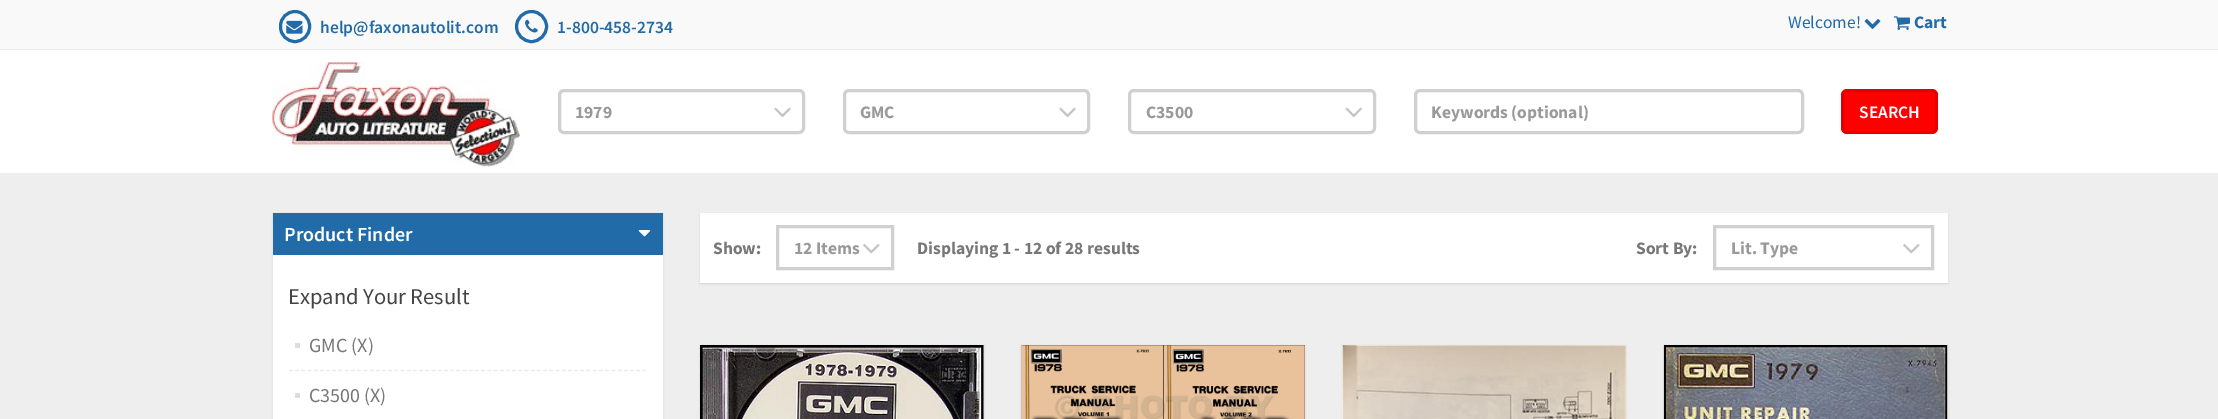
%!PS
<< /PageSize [2218 419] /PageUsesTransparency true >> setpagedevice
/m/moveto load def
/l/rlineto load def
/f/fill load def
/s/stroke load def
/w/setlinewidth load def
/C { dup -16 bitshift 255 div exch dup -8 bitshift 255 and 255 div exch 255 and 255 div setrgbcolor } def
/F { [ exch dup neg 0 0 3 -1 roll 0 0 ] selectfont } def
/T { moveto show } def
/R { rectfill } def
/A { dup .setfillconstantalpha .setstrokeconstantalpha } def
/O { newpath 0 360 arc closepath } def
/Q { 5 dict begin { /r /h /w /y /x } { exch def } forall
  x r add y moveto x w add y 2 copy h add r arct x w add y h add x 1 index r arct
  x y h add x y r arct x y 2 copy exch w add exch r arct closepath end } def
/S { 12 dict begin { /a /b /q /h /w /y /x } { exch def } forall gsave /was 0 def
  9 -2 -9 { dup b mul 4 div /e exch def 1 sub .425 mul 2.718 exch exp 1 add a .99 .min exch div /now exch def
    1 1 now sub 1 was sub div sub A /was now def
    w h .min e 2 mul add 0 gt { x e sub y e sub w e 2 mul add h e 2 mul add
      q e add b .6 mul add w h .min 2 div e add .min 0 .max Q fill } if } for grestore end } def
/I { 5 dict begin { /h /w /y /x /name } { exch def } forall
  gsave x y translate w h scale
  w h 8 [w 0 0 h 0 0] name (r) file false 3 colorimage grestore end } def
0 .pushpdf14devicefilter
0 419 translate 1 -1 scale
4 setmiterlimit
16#EEEEEE C
0 0 2218 419 R
16#F9F9F9 C
0 0 2218 49 R
16#EBEBEB C
0 49 2218 1 R
16#206BA8 C
3 w
280.5 11.5 29 30 14.5 Q s
(1.rgb) 286 20 17 14 I
/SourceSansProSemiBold-SemiBold 17.5 F
(help@faxonautolit.com) 320 33 T
531.5 26.5 15 O s
(2.rgb) 525 19 13 14 I
(1-800-458-2734) 557 33 T
/SourceSansPro-Regular 17.5 F
(Welcome!) 1788 28 T
(3.rgb) 1864 19 17 10 I
(4.rgb) 1893 16 17 14 I
/SourceSansPro-Bold 17.5 F
(Cart) 1914 28 T
16#FFFFFF C
0 50 2218 123 R
(5.rgb) 272 62 248 105 I
(6.rgb) 774 107 17 11 I
16#D0D0D0 C
559.5 90.5 244 42 4.5 Q s
16#999999 C
(1979) 575 118 T
(7.rgb) 1059 107 17 11 I
16#D0D0D0 C
844.5 90.5 244 42 4.5 Q s
16#999999 C
(GMC) 860 118 T
(8.rgb) 1345 107 17 11 I
16#D0D0D0 C
1129.5 90.5 245 42 4.5 Q s
16#999999 C
(C3500) 1146 118 T
16#D0D0D0 C
1415.5 90.5 387 42 4.5 Q s
16#999999 C
(Keywords \(optional\)) 1431 118 T
16#FF0000 C
1841 89 97 45 6 Q f
0.1 A
16#000000 C
1842.5 90.5 94 42 4.5 Q s
/SourceSansProSemiBold-SemiBold 17.5 F
1 A
16#FFFFFF C
(SEARCH) 1859 118 T
16#000000 C
273 214 390 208 0 1 .1 S
16#FFFFFF C
273 255 390 164 R
16#206BA8 C
273 213 390 42 R
/SourceSansProSemiBold-SemiBold 20 F
16#FFFFFF C
(Product Finder) 284 241 T
(9.rgb) 638 230 13 7 I
/SourceSansPro-Regular 22.5 F
16#444444 C
(Expand Your Result) 288 304 T
16#EBEBEB C
1.2 w
[3.75 2.45] 0 setdash
289 370.5 m 357 0 l s
16#DDDDDD C
295 343 5 5 R
/SourceSansPro-Regular 20 F
16#777777 C
(GMC \(X\)) 309 352 T
16#DDDDDD C
295 393 5 5 R
16#777777 C
(C3500 \(X\)) 309 402 T
16#000000 C
700 214 1248 70 0 1 .1 S
16#FFFFFF C
700 213 1248 70 R
/SourceSansPro-Bold 17.5 F
16#777777 C
(Show:) 713 254 T
(10.rgb) 863 243 17 11 I
16#D0D0D0 C
3 w
[] 0 setdash
777.5 226.5 115 42 rectstroke
16#999999 C
(12 Items) 794 254 T
16#777777 C
(Displaying 1 - 12 of 28 results) 917 254 T
(Sort By:) 1636 254 T
(10.rgb) 1903 243 17 11 I
16#D0D0D0 C
1714.5 226.5 218 42 rectstroke
16#999999 C
(Lit. Type) 1731 254 T
16#000000 C
700 346 284 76 0 1 .1 S
16#FFFFFF C
983 345 1 74 R
(11.rgb) 700 345 284 74 I
16#000000 C
1021 346 284 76 0 1 .1 S
16#FFFFFF C
1021 345 1 74 R
(12.rgb) 1021 345 284 74 I
16#000000 C
1343 346 283 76 0 1 .1 S
(13.rgb) 1342 345 284 74 I
1664 346 284 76 0 1 .1 S
16#FFFFFF C
1947 345 1 74 R
(14.rgb) 1663 345 285 74 I
.poppdf14devicefilter showpage
